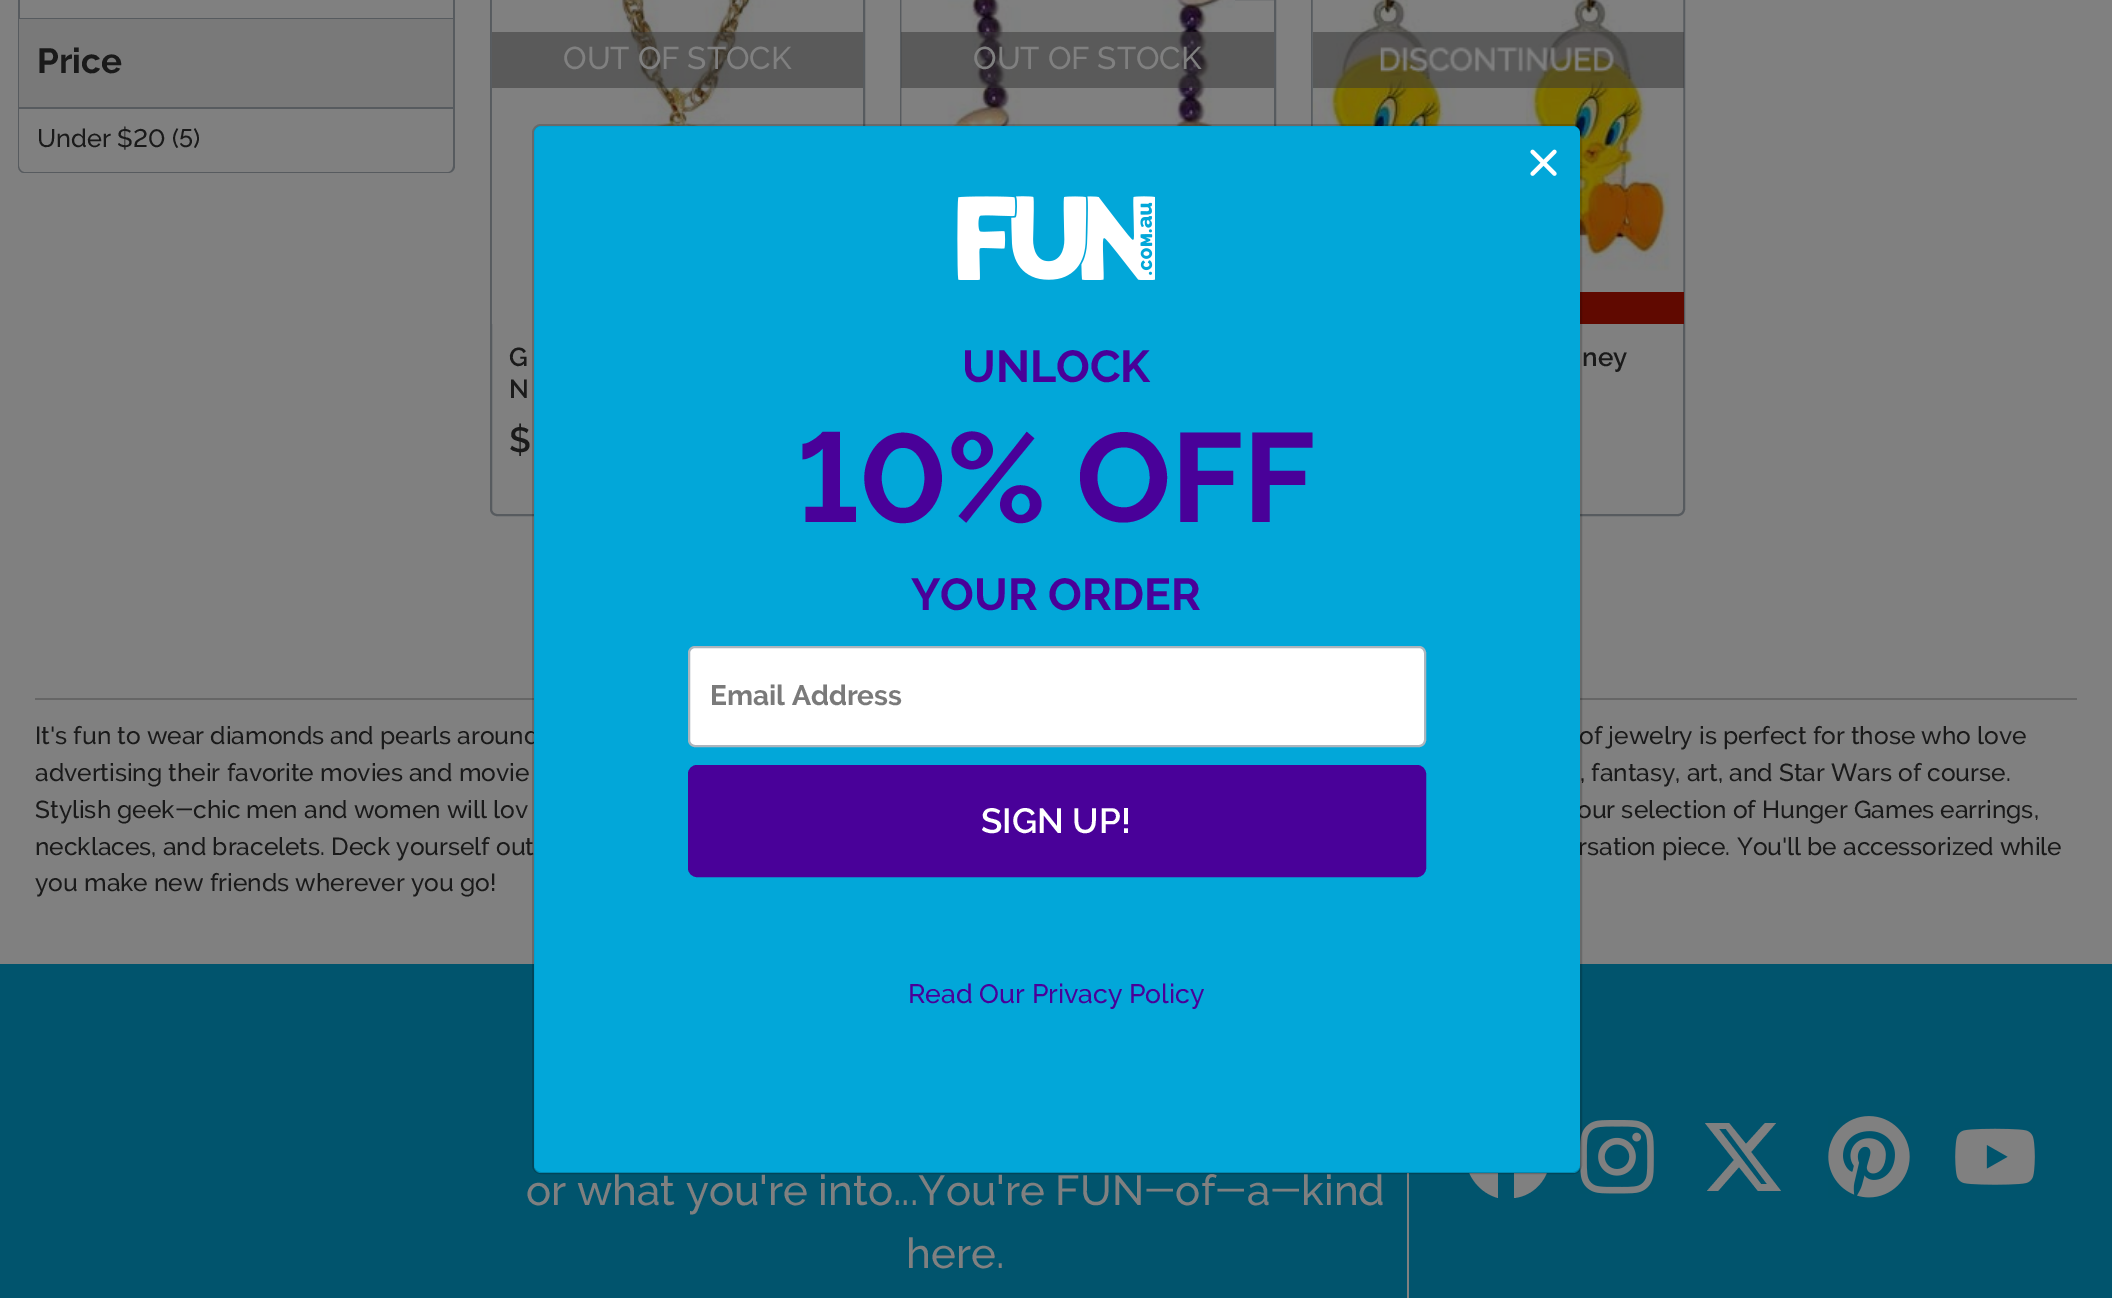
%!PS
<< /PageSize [2112 1298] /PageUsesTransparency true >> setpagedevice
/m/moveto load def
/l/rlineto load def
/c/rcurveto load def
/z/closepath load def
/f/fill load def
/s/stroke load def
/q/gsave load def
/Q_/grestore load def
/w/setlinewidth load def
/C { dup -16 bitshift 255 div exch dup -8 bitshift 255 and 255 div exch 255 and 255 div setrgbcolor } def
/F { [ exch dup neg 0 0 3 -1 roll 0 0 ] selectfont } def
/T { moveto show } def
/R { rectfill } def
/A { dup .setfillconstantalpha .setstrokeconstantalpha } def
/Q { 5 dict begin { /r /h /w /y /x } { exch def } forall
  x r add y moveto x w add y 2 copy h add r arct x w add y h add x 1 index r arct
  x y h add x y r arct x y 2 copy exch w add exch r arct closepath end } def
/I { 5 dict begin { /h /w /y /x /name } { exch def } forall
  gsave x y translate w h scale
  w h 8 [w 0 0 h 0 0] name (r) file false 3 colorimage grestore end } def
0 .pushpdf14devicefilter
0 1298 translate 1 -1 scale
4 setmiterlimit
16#808080 C
0 0 2112 1298 R
16#575B5F C
453 0 2 19 R
18 18 437 1 R
18 0 2 19 R
18 19 m 437 0 l 0 147 l 0 4 -3 7 -7 7 c -424 0 l -3 0 -6 -3 -6 -7 c z 19 19 m 434 0 l 0 147 l 0 3 -2 6 -5 6 c -424 0 l -2 0 -5 -3 -5 -6 c z eofill
16#797979 C
19 19 434 88 R
16#575B5F C
19 107 434 2 R
/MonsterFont-Bold 35 F
16#1A1A1A C
(Price) 37 73 T
/MonsterFont-Medium 25.25 F
(Under $20 \(5\)) 37 147 T
16#575B5F C
2 w
491 -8 373 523 6 Q s
(1.rgb) 491 0 285 324 I
0.5 A
16#353535 C
492 32 371 56 R
/MonsterFont-Medium 31.5 F
1 A
16#808080 C
(OUT OF STOCK) 563 69 T
/MonsterFont-SemiBold 26 F
16#1A1A1A C
(G) 509 366 T
(N) 509 398 T
/MonsterFont-SemiBold 35 F
($) 509 452 T
16#575B5F C
901 -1 374 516 rectstroke
(2.rgb) 901 0 334 126 I
0.5 A
16#353535 C
901 32 373 56 R
/MonsterFont-Medium 31.5 F
1 A
16#808080 C
(OUT OF STOCK) 973 69 T
16#575B5F C
1312 -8 372 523 6 Q s
(3.rgb) 1312 0 372 292 I
0.5 A
16#353535 C
1313 32 371 56 R
1 A
(4.rgb) 1380 47 234 25 I
16#600900 C
1580 292 104 32 R
/MonsterFont-SemiBold 26 F
16#1A1A1A C
(ney) 1582 366 T
16#666666 C
35 698 2042 2 R
/MonsterFont-Medium 24.5 F
16#1A1A1A C
(It's fun to wear diamonds and pearls around) 35 744 T
(of jewelry is perfect for those who love) 1579 744 T
(advertising their favorite movies and movie) 35 781 T
(, fantasy, art, and Star Wars of course.) 1580 781 T
(Stylish geek-chic men and women will lov) 35 818 T
(our selection of Hunger Games earrings,) 1577 818 T
(necklaces, and bracelets. Deck yourself out) 35 855 T
(rsation piece. You'll be accessorized while) 1578 855 T
(you make new friends wherever you go!) 35 891 T
16#01546D C
0 964 2112 334 R
16#808080 C
1550 1157 m 0 -23 -18 -42 -42 -42 c -23 0 -42 19 -42 42 c 0 19 14 36 32 41 c 0 -28 l -8 0 l 0 -13 l 8 0 l 0 -5 0 -10 2 -15 c 3 -12 18 -14 28 -11 c 0 12 l -13 -1 -14 1 -14 14 c 13 0 l -2 13 l -11 0 l 0 28 l 20 -2 36 -20 36 -41 c z f
16#02A7D9 C
534 126 1046 1047 7 Q f
(7.rgb) 1580 1120 74 74 I
16#808080 C
1407 1173 2 125 R
/MonsterFont-Medium 42 F
(or what you're into...You're FUN-of-a-kind) 526 1205 T
0.18 A
16#000000 C
533 125 1048 1048 8 Q s
1 A
(5.rgb) 1530 149 27 27 I
(6.rgb) 957 196 198 84 I
/MonsterFont-Bold 44.75 F
16#490199 C
(UNLOCK) 962 382 T
/MonsterFont-Bold 126 F
(10% OFF) 797 522 T
/MonsterFont-Bold 44.75 F
(YOUR ORDER) 911 610 T
16#FFFFFF C
689 647 736 99 6 Q q f Q_
16#ADB5BD C
s
/MonsterFont-Bold 28 F
16#7A7A7A C
(Email Address) 710 705 T
16#490199 C
689 766 736 110 8 Q q f Q_
s
/MonsterFont-SemiBold 35 F
16#FFFFFF C
(SIGN UP!) 981 833 T
/MonsterFont-Medium 26.6 F
16#490199 C
(Read Our Privacy Policy) 908 1003 T
16#808080 C
1765 1123 m 11 0 l -25 29 l 30 39 l -23 0 l -19 -24 l -21 24 l -11 0 l 27 -31 l -29 -37 l 24 0 l 17 21 l z 1761 1184 m 6 0 l -41 -55 l -7 0 l z f
(8.rgb) 1828 1116 82 82 I
(9.rgb) 1955 1128 80 57 I
/MonsterFont-Medium 42 F
(here.) 906 1268 T
.poppdf14devicefilter showpage
